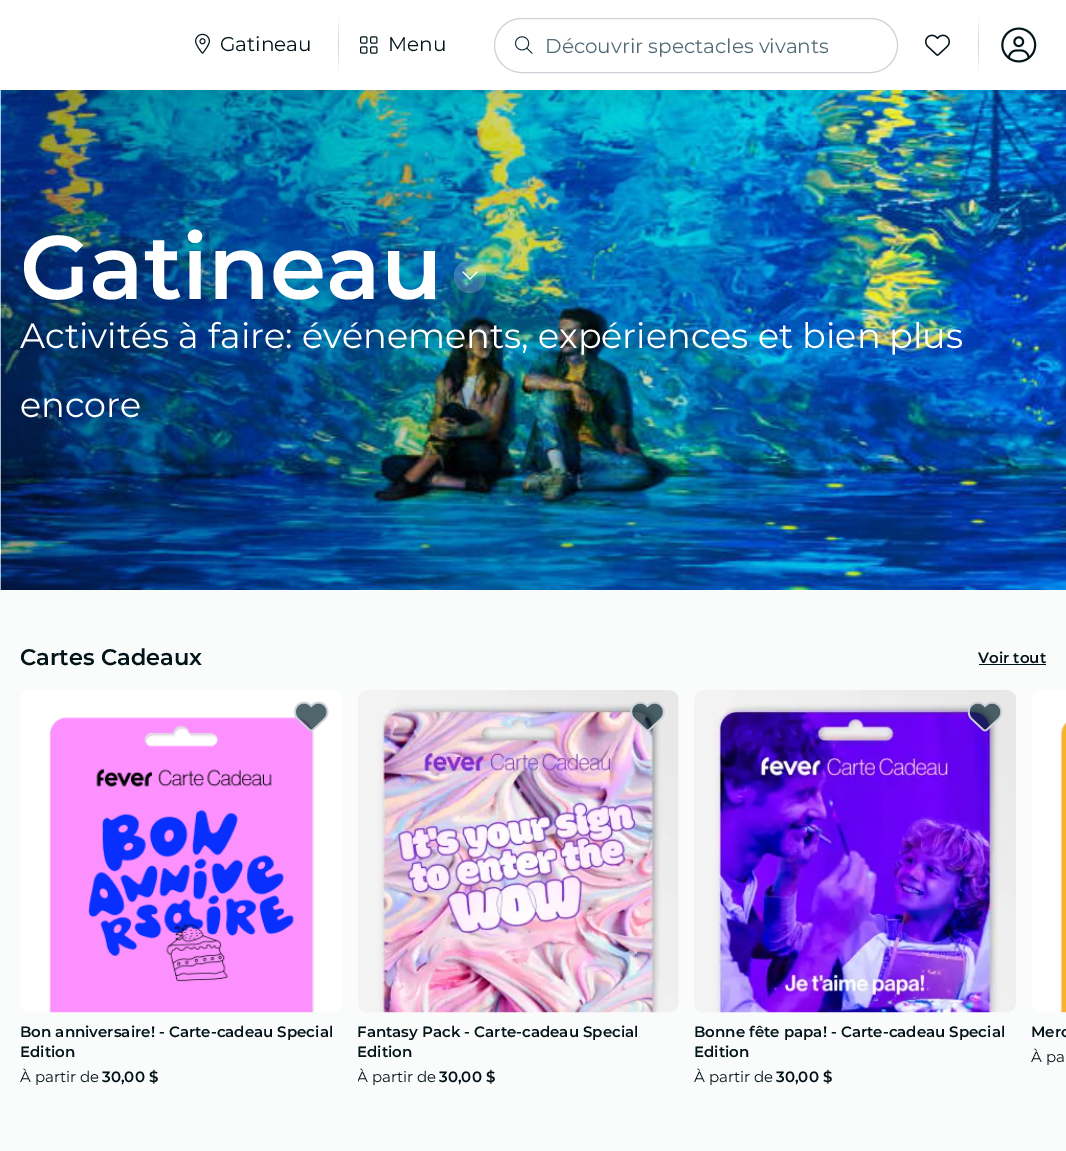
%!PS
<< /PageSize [1066 1151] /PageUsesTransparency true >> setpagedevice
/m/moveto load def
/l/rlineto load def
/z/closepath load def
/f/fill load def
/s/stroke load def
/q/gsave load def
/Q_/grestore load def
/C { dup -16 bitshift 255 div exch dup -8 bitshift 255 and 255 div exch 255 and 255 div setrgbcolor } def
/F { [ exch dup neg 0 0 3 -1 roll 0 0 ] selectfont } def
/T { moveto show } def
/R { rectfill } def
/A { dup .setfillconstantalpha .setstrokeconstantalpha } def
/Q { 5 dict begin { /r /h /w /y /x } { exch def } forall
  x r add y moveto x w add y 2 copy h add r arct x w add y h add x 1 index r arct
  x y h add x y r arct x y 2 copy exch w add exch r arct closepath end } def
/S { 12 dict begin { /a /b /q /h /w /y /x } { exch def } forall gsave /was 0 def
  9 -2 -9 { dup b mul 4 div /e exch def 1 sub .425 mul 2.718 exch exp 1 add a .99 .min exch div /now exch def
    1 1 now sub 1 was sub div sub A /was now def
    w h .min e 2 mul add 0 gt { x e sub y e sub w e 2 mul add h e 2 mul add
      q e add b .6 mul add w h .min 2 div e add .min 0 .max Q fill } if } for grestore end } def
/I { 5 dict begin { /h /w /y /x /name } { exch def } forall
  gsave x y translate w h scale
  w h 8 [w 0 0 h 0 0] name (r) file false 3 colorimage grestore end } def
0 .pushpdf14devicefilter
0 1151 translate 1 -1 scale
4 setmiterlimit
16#FFFFFF C
0 0 1066 1151 R
16#FAFBFB C
0 90 1066 1061 R
(6.rgb) 0 90 1066 500 I
q
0 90 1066 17 rectclip
16#000000 C
0 15 1066 90 0 7.5 .05 S
Q_
(1.rgb) 195 33 15 21 I
/Montserrat-Regular 20 F
16#031419 C
(Gatineau) 220 51 T
q 338 15 m 1 0 l 0 60 l -1 0 l z clip newpath
<< /ShadingType 2 /ColorSpace /DeviceRGB /Coords [338 15 338 75] /Extend [true true] /Function << /FunctionType 3 /Domain [0 1] /Functions [<< /FunctionType 2 /Domain [0 1] /C0 [1 1 1] /C1 [.8 .824 .847] /N 1 >> << /FunctionType 2 /Domain [0 1] /C0 [.8 .824 .847] /C1 [1 1 1] /N 1 >>] /Bounds [.5] /Encode [0 1 0 1] >> >> shfill Q_
(2.rgb) 360 36 18 18 I
(Menu) 388 51 T
16#CCD2D8 C
494.5 18.5 403 54 27 Q s
(3.rgb) 515 36 18 18 I
16#536B75 C
(Découvrir spectacles vivants) 545 53 T
(4.rgb) 925 34 25 22 I
q 978 15 m 1 0 l 0 60 l -1 0 l z clip newpath
<< /ShadingType 2 /ColorSpace /DeviceRGB /Coords [978 15 978 75] /Extend [true true] /Function << /FunctionType 3 /Domain [0 1] /Functions [<< /FunctionType 2 /Domain [0 1] /C0 [1 1 1] /C1 [.8 .824 .847] /N 1 >> << /FunctionType 2 /Domain [0 1] /C0 [.8 .824 .847] /C1 [1 1 1] /N 1 >>] /Bounds [.5] /Encode [0 1 0 1] >> >> shfill Q_
(5.rgb) 1001 27 36 36 I
/Montserrat-SemiBold 90 F
16#FFFFFF C
(Gatineau) 20 299 T
0.2 A
454 260 32 33 16 Q f
1 A
(7.rgb) 462 271 16 9 I
/Montserrat-Regular 35 F
(Activités à faire: événements, expériences et bien plus) 20 348 T
(encore) 20 417 T
/Montserrat-SemiBold 22.5 F
16#031419 C
(Cartes Cadeaux) 20 665 T
/Montserrat-SemiBold 15 F
(Voir tout) 978 663 T
979 664 67 1 R
(9.rgb) 20 690 322 323 I
(8.rgb) 294 701 35 31 I
(Bon anniversaire! - Carte-cadeau Special) 20 1037 T
(Edition) 20 1057 T
/Montserrat-Regular 15 F
(À partir de) 20 1082 T
/Montserrat-SemiBold 15 F
(30,00 $) 102 1082 T
(11.rgb) 358 690 321 323 I
(10.rgb) 630 701 35 31 I
(Fantasy Pack - Carte-cadeau Special) 357 1037 T
(Edition) 357 1057 T
q
358 690 321 398 8 Q clip newpath
/Montserrat-Regular 15 F
(À partir de) 357 1082 T
Q_
(30,00 $) 439 1082 T
(13.rgb) 694 690 322 323 I
(12.rgb) 967 701 36 31 I
(Bonne fête papa! - Carte-cadeau Special) 694 1037 T
(Edition) 694 1057 T
/Montserrat-Regular 15 F
(À partir de) 694 1082 T
/Montserrat-SemiBold 15 F
(30,00 $) 776 1082 T
(14.rgb) 1032 690 34 323 I
(Merc) 1031 1037 T
/Montserrat-Regular 15 F
(À pa) 1031 1062 T
.poppdf14devicefilter showpage
